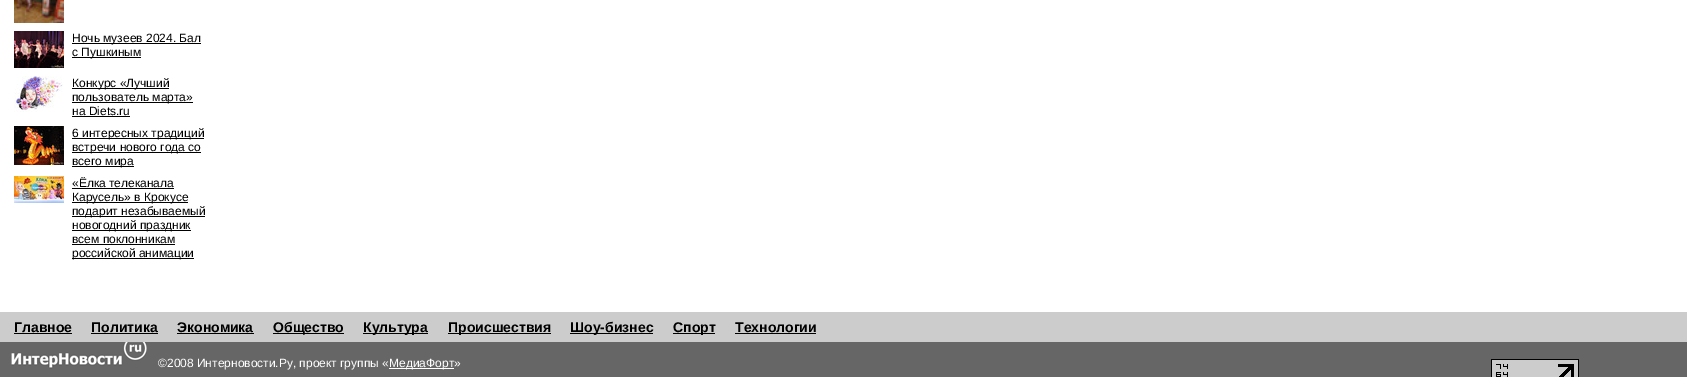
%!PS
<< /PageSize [1687 377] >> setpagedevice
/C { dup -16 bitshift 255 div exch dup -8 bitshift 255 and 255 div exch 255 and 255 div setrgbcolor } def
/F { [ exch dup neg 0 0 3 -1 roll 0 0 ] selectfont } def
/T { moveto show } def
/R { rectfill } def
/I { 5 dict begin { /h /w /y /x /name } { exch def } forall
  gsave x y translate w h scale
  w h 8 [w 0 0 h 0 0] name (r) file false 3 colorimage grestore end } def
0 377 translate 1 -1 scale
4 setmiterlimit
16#FFFFFF C
0 0 1687 377 R
(1.rgb) 14 0 50 23 I
(2.rgb) 14 31 50 37 I
16#000000 C
72 43 129 1 R
/LiberationSans-Regular 12 F
(Ночь музеев 2024. Бал) 72 42 T
72 57 69 1 R
(с Пушкиным) 72 56 T
(3.rgb) 14 76 49 36 I
72 88 97 1 R
(Конкурс «Лучший) 72 87 T
72 102 121 1 R
(пользователь марта») 72 101 T
(на Diets.ru) 72 115 T
72 116 58 1 R
(4.rgb) 14 126 50 39 I
72 138 132 1 R
(6 интересных традиций) 72 137 T
72 152 129 1 R
(встречи нового года со) 72 151 T
72 166 62 1 R
(всего мира) 72 165 T
(5.rgb) 14 176 50 27 I
(«Ёлка телеканала) 72 187 T
72 188 102 1 R
72 202 116 1 R
(Карусель» в Крокусе) 72 201 T
72 216 133 1 R
(подарит незабываемый) 72 215 T
72 230 119 1 R
(новогодний праздник) 72 229 T
(всем поклонникам) 72 243 T
72 244 103 1 R
72 258 122 1 R
(российской анимации) 72 257 T
16#CCCCCC C
0 312 1687 30 R
/LiberationSans-Bold 14 F
16#000000 C
(Главное) 14 332 T
14 333 58 1 R
(Политика) 91 332 T
91 333 67 1 R
(Экономика) 177 332 T
177 333 77 1 R
273 333 71 1 R
(Общество) 273 332 T
363 333 65 1 R
(Культура) 363 332 T
448 333 103 1 R
(Происшествия) 448 332 T
570 333 83 1 R
(Шоу-бизнес) 570 332 T
673 333 42 1 R
(Спорт) 673 332 T
(Технологии) 735 332 T
735 333 81 1 R
16#666666 C
0 342 1687 35 R
(6.rgb) 11 342 136 27 I
/LiberationSans-Regular 12 F
16#FFFFFF C
(©2008 Интерновости.Ру, проект группы «) 158 367 T
389 368 65 1 R
(МедиаФорт») 389 367 T
(7.rgb) 1491 359 88 18 I
showpage
